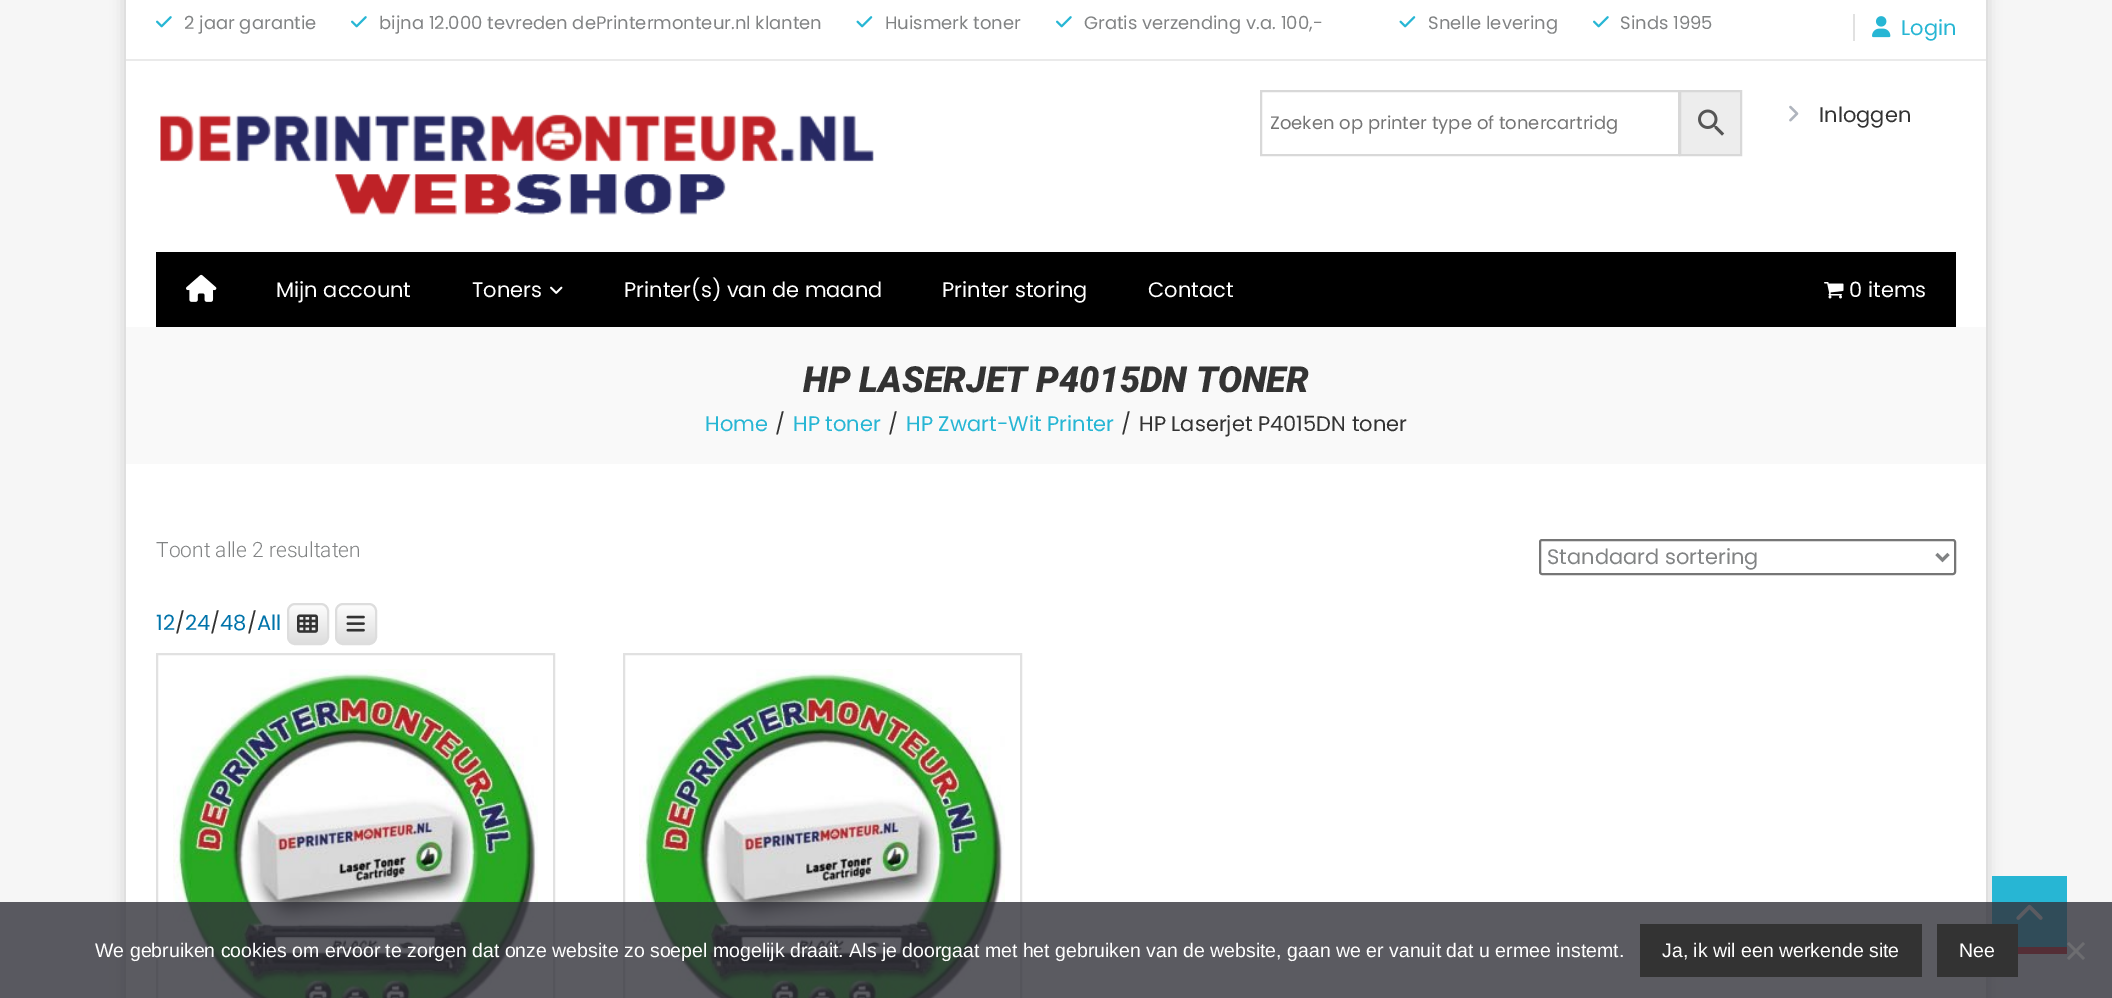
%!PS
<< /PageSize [2112 998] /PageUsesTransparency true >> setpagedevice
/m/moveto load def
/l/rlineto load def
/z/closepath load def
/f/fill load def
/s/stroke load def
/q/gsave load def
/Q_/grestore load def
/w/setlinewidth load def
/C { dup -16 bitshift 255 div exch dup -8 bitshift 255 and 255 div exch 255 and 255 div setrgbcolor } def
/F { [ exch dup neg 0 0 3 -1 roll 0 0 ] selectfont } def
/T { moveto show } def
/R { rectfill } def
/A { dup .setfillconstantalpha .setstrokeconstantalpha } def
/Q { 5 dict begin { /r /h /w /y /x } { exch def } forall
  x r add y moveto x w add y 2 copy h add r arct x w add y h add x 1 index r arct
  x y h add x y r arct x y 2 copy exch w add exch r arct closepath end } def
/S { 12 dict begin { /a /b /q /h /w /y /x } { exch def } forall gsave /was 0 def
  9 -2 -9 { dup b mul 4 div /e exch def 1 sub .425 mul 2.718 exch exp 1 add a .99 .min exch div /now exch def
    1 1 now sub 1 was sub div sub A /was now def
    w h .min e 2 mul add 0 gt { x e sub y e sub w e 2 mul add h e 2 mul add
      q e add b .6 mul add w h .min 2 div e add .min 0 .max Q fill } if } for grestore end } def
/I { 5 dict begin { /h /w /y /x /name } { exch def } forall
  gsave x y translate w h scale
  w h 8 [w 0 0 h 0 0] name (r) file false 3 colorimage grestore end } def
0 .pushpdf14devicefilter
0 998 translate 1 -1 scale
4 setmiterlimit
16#F6F6F6 C
0 0 2112 998 R
16#C7C7C7 C
126 -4 1860 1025 0 7.5 1 S
16#FFFFFF C
126 0 1860 998 R
16#EAEAEA C
126 59 1860 2 R
(1.rgb) 156 16 16 12 I
/Poppins-Regular 18 F
16#818384 C
(2 jaar garantie) 184 29 T
(1.rgb) 351 16 16 12 I
(bijna 12.000 tevreden dePrintermonteur.nl klanten) 379 29 T
(2.rgb) 856 16 17 12 I
(Huismerk toner) 885 29 T
(1.rgb) 1056 16 16 12 I
(Gratis verzending v.a. 100,-) 1084 29 T
(2.rgb) 1399 16 17 12 I
(Snelle levering) 1428 29 T
(1.rgb) 1593 16 16 12 I
(Sinds 1995) 1620 29 T
16#E1E1E1 C
1853 14 2 27 R
(3.rgb) 1872 16 19 22 I
/Poppins-Regular 21 F
16#27B6D4 C
(Login) 1901 35 T
(4.rgb) 160 114 714 101 I
16#EDEDED C
1680 91 m 61 0 l 0 64 l -61 0 l z q f Q_
16#D8D8D8 C
2 w
s
1261 91 418 64 rectstroke
q
1271 110 348 27 rectclip
/Poppins-Regular 18 F
16#757575 C
(Zoeken op printer type of tonercartridg) 1270 129 T
Q_
(5.rgb) 1698 109 27 27 I
(6.rgb) 1789 105 10 17 I
16#333333 C
(Inloggen) 1819 122 T
16#000000 C
156 252 1800 75 R
(7.rgb) 186 274 31 28 I
16#FFFFFF C
(Mijn account) 276 297 T
(Toners) 472 297 T
(8.rgb) 550 286 13 8 I
(Printer\(s\) van de maand) 624 297 T
(Printer storing) 942 297 T
(Contact) 1148 297 T
(9.rgb) 1824 282 20 17 I
(0 items) 1849 297 T
16#F9F9F9 C
126 327 1860 137 R
/Roboto-BlackItalic 36 F
16#333333 C
(HP LASERJET P4015DN TONER) 803 392 T
/Poppins-Regular 21 F
16#27B6D4 C
(Home) 705 431 T
16#333333 C
(/) 775 431 T
16#27B6D4 C
(HP toner) 793 431 T
16#333333 C
(/) 888 431 T
16#27B6D4 C
(HP Zwart-Wit Printer) 906 431 T
16#333333 C
(/) 1121 431 T
(HP Laserjet P4015DN toner) 1139 431 T
/Roboto-Light 21 F
16#818384 C
(Toont alle 2 resultaten) 156 557 T
16#767676 C
1540 540 415 34 2 Q s
16#818384 C
3 w
1936.5 554 m 6 6 l 6 -6 l s
/Poppins-Regular 21 F
(Standaard sortering) 1547 564 T
16#0073AA C
(12) 156 630 T
16#333333 C
(/) 175 630 T
16#0073AA C
(24) 185 630 T
16#333333 C
(/) 210 630 T
16#0073AA C
(48) 220 630 T
16#333333 C
(/) 247 630 T
16#0073AA C
(All) 257 630 T
q 288 604 40 40 7 Q clip newpath
<< /ShadingType 2 /ColorSpace /DeviceRGB /Coords [308 603 308 645] /Extend [true true] /Function << /FunctionType 2 /Domain [0 1] /C0 [1 1 1] /C1 [.863 .863 .863] /N 1 >> >> shfill Q_
16#DDDDDD C
2 w
288 604 40 40 7 Q s
(10.rgb) 297 614 21 19 I
q 336 604 40 40 7 Q clip newpath
<< /ShadingType 2 /ColorSpace /DeviceRGB /Coords [356 603 356 645] /Extend [true true] /Function << /FunctionType 2 /Domain [0 1] /C0 [1 1 1] /C1 [.863 .863 .863] /N 1 >> >> shfill Q_
336 604 40 40 7 Q s
(11.rgb) 346 615 19 17 I
16#E1E1E1 C
157 654 397 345 rectstroke
(12.rgb) 173 669 365 329 I
624 654 397 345 rectstroke
(13.rgb) 639 669 366 329 I
16#27B6D4 C
1992 876 75 71 R
16#DD1F26 C
2018 947 49 7 R
(14.rgb) 2016 904 27 16 I
0.8 A
16#32323A C
0 902 2112 96 R
/LiberationSans-Regular 19.5 F
1 A
16#FFFFFF C
(We gebruiken cookies om ervoor te zorgen dat onze website zo soepel mogelijk draait. Als je doorgaat met het gebruiken van de website, gaan we er vanuit dat u ermee instemt.) 95 957 T
16#333333 C
1640 924 282 53 R
16#FFFFFF C
(Ja, ik wil een werkende site) 1662 957 T
16#333333 C
1937 924 81 53 R
16#FFFFFF C
(Nee) 1959 957 T
16#6D6D70 C
2083 942 m 2 2 l -16 16 l -2 -2 l z f
2067 944 m 2 -2 l 16 16 l -2 2 l z f
.poppdf14devicefilter showpage
